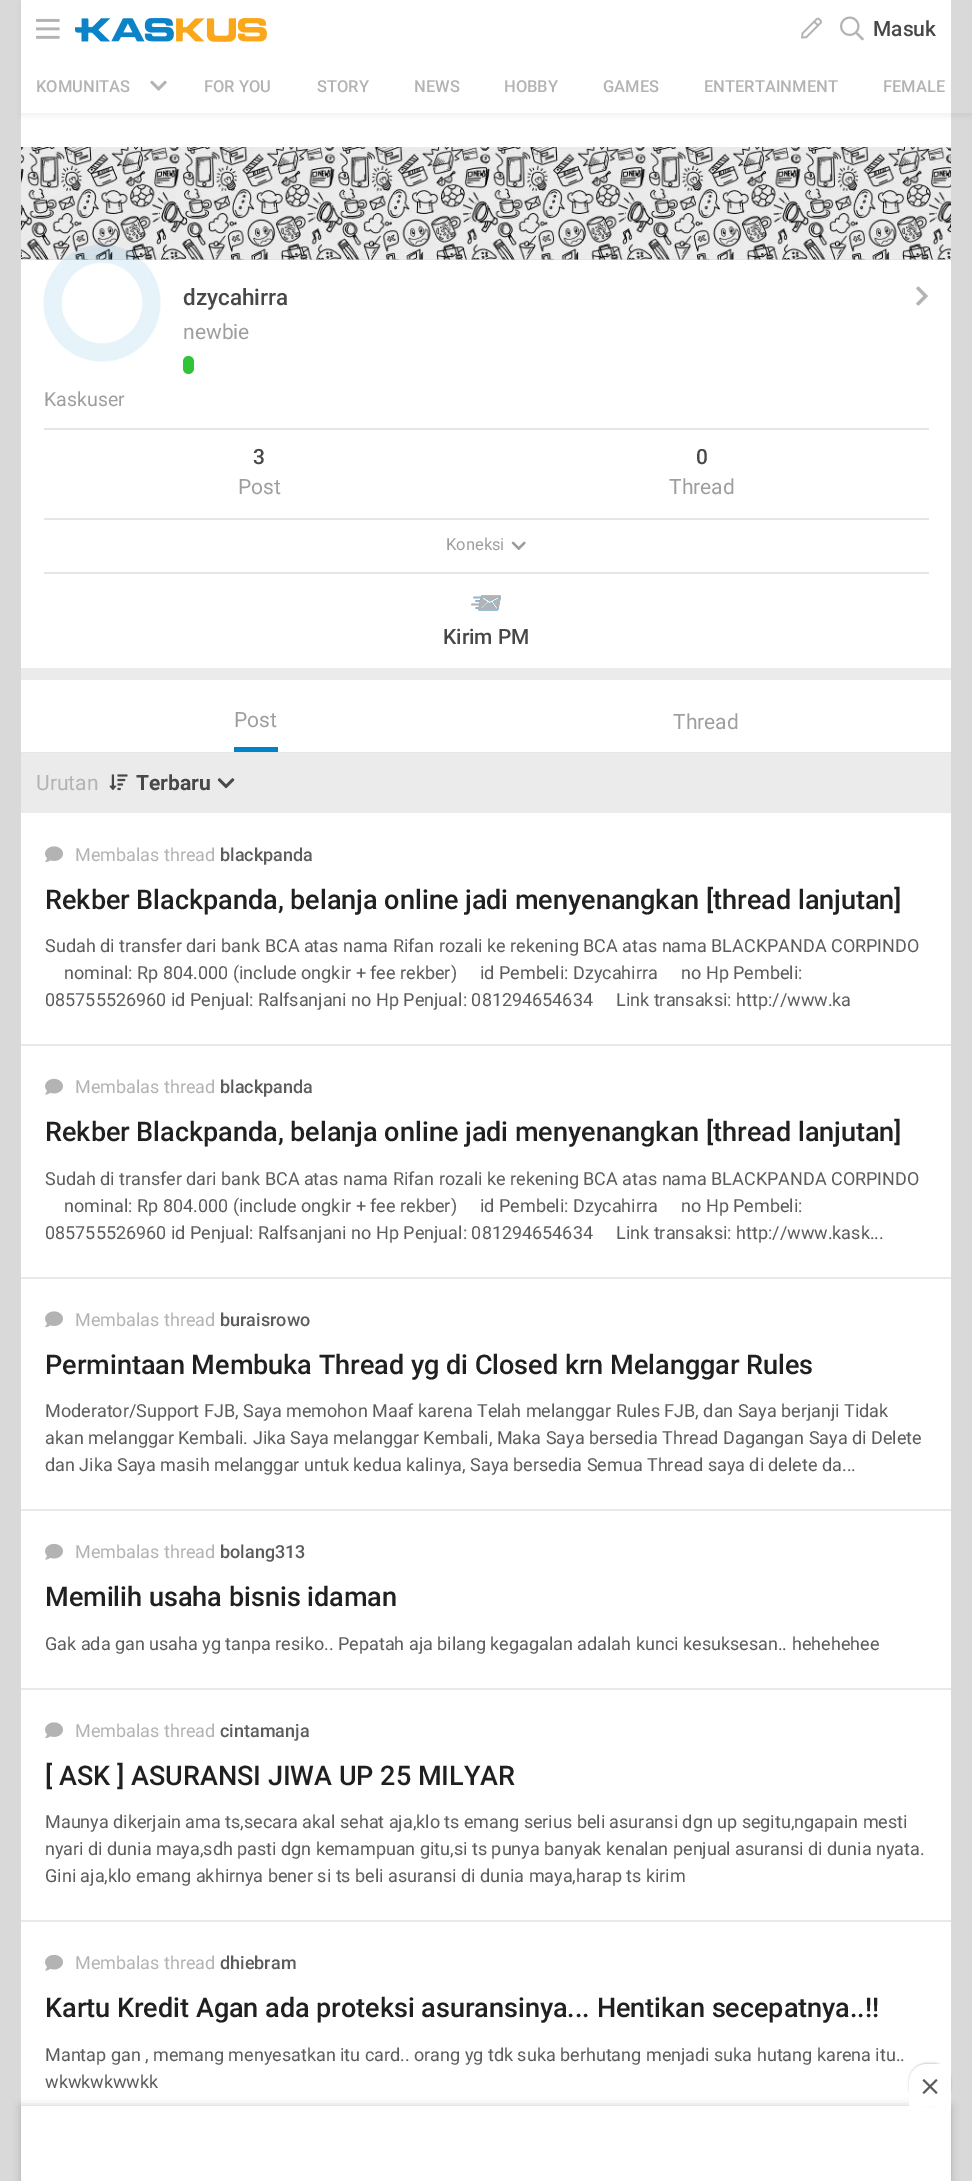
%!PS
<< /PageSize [972 2181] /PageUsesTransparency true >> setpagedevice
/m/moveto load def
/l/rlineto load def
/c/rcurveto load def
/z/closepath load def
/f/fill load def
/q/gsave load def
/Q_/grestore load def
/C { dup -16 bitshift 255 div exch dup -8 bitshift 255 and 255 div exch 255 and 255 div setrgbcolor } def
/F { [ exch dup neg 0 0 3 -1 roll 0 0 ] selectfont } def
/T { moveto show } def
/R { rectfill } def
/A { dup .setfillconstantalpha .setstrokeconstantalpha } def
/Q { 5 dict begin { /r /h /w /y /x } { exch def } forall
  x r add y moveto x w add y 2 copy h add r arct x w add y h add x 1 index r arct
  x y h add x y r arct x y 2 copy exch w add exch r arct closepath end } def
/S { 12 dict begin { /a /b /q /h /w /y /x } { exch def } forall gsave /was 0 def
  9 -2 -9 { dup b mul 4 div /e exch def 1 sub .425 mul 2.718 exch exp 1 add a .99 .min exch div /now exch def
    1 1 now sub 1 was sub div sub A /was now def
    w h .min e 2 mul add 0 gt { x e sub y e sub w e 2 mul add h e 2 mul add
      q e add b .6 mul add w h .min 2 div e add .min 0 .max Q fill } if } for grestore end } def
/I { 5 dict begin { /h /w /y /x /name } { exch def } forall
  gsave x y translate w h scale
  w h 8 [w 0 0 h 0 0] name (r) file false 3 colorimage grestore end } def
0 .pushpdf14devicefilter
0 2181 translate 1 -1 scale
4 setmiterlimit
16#D9D9D9 C
0 0 972 2181 R
16#FFFFFF C
21 0 930 2106 R
q
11 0 m 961 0 l 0 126 l -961 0 l z 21 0 m 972 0 l 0 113 l -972 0 l z eoclip newpath
16#000000 C
21 3 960 113 0 3 .05 S
Q_
(1.rgb) 36 18 24 21 I
(2.rgb) 75 18 192 24 I
(3.rgb) 801 17 21 22 I
(4.rgb) 840 16 24 25 I
/Roboto-Medium 21 F
16#484848 C
(Masuk) 873 36 T
16#FFFFFF C
21 112 930 1 R
/Roboto-Medium 16.5 F
16#B3B3B3 C
(KOMUNITAS) 36 92 T
(5.rgb) 150 80 17 11 I
(FOR YOU) 204 92 T
(STORY) 317 92 T
(NEWS) 414 92 T
(HOBBY) 504 92 T
(GAMES) 603 92 T
(ENTERTAINMENT) 704 92 T
(FEMALE) 883 92 T
16#D8D8D8 C
21 259 930 1 R
(6.rgb) 21 147 930 113 I
(7.rgb) 43 244 118 118 I
/Roboto-Medium 22.5 F
16#484848 C
(dzycahirra) 183 305 T
/Roboto-Regular 21 F
16#9E9E9E C
(newbie) 183 339 T
16#30C436 C
183 356 11 18 5.5 Q f
(8.rgb) 916 286 12 20 I
16#EBEBEB C
21 668 930 12 R
/Roboto-Regular 19.5 F
16#9E9E9E C
(Kaskuser) 44 406 T
16#E6E6E6 C
44 428 885 2 R
/Roboto-Medium 21 F
16#484848 C
(3) 253 464 T
/Roboto-Regular 21 F
16#9E9E9E C
(Post) 238 494 T
/Roboto-Medium 21 F
16#484848 C
(0) 696 464 T
/Roboto-Regular 21 F
16#9E9E9E C
(Thread) 669 494 T
16#E6E6E6 C
44 518 885 2 R
/Roboto-Regular 16.5 F
16#9E9E9E C
(Koneksi) 446 550 T
(9.rgb) 511 541 15 9 I
16#E6E6E6 C
44 572 885 2 R
(10.rgb) 471 595 30 16 I
/Roboto-Medium 21 F
16#484848 C
(Kirim PM) 443 644 T
16#E6E6E6 C
21 752 930 1 R
16#0082C6 C
234 747 44 5 R
/Roboto-Regular 21 F
16#9E9E9E C
(Post) 234 727 T
(Thread) 673 729 T
16#EBEBEB C
21 753 930 60 R
16#B3B3B3 C
(Urutan) 36 790 T
(11.rgb) 109 774 19 17 I
/Roboto-Bold 21 F
16#484848 C
(Terbaru) 136 790 T
(12.rgb) 217 778 18 11 I
16#E9E9E9 C
21 1044 930 2 R
(13.rgb) 45 846 18 17 I
/Roboto-Regular 18 F
16#B3B3B3 C
(Membalas thread) 75 861 T
/Roboto-Medium 18 F
16#5C5C5C C
(blackpanda) 220 861 T
/Roboto-Medium 27 F
16#202020 C
(Rekber Blackpanda, belanja online jadi menyenangkan [thread lanjutan]) 45 909 T
/Roboto-Regular 18 F
16#5C5C5C C
(Sudah di transfer dari bank BCA atas nama Rifan rozali ke rekening BCA atas nama BLACKPANDA CORPINDO) 45 952 T
(nominal: Rp 804.000 \(include ongkir + fee rekber\)) 64 979 T
(id Pembeli: Dzycahirra) 480 979 T
(no Hp Pembeli:) 681 979 T
(085755526960 id Penjual: Ralfsanjani no Hp Penjual: 081294654634) 45 1006 T
(Link transaksi: http://www.ka) 616 1006 T
16#E9E9E9 C
21 1277 930 2 R
(14.rgb) 45 1078 18 17 I
16#B3B3B3 C
(Membalas thread) 75 1093 T
/Roboto-Medium 18 F
16#5C5C5C C
(blackpanda) 220 1093 T
/Roboto-Medium 27 F
16#202020 C
(Rekber Blackpanda, belanja online jadi menyenangkan [thread lanjutan]) 45 1141 T
/Roboto-Regular 18 F
16#5C5C5C C
(Sudah di transfer dari bank BCA atas nama Rifan rozali ke rekening BCA atas nama BLACKPANDA CORPINDO) 45 1185 T
(nominal: Rp 804.000 \(include ongkir + fee rekber\)) 64 1212 T
(id Pembeli: Dzycahirra) 480 1212 T
(no Hp Pembeli:) 681 1212 T
(085755526960 id Penjual: Ralfsanjani no Hp Penjual: 081294654634) 45 1239 T
(Link transaksi: http://www.kask...) 616 1239 T
16#E9E9E9 C
21 1509 930 2 R
(13.rgb) 45 1311 18 17 I
16#B3B3B3 C
(Membalas thread) 75 1326 T
/Roboto-Medium 18 F
16#5C5C5C C
(buraisrowo) 220 1326 T
/Roboto-Medium 27 F
16#202020 C
(Permintaan Membuka Thread yg di Closed krn Melanggar Rules) 45 1374 T
/Roboto-Regular 18 F
16#5C5C5C C
(Moderator/Support FJB, Saya memohon Maaf karena Telah melanggar Rules FJB, dan Saya berjanji Tidak) 45 1417 T
(akan melanggar Kembali. Jika Saya melanggar Kembali, Maka Saya bersedia Thread Dagangan Saya di Delete) 45 1444 T
(dan Jika Saya masih melanggar untuk kedua kalinya, Saya bersedia Semua Thread saya di delete da...) 45 1471 T
16#E9E9E9 C
21 1688 930 2 R
(14.rgb) 45 1543 18 17 I
16#B3B3B3 C
(Membalas thread) 75 1558 T
/Roboto-Medium 18 F
16#5C5C5C C
(bolang313) 220 1558 T
/Roboto-Medium 27 F
16#202020 C
(Memilih usaha bisnis idaman) 45 1606 T
/Roboto-Regular 18 F
16#5C5C5C C
(Gak ada gan usaha yg tanpa resiko.. Pepatah aja bilang kegagalan adalah kunci kesuksesan.. hehehehee) 45 1650 T
16#E9E9E9 C
21 1920 930 2 R
(13.rgb) 45 1722 18 17 I
16#B3B3B3 C
(Membalas thread) 75 1737 T
/Roboto-Medium 18 F
16#5C5C5C C
(cintamanja) 220 1737 T
/Roboto-Medium 27 F
16#202020 C
([ ASK ] ASURANSI JIWA UP 25 MILYAR) 45 1785 T
/Roboto-Regular 18 F
16#5C5C5C C
(Maunya dikerjain ama ts,secara akal sehat aja,klo ts emang serius beli asuransi dgn up segitu,ngapain mesti) 45 1828 T
(nyari di dunia maya,sdh pasti dgn kemampuan gitu,si ts punya banyak kenalan penjual asuransi di dunia nyata.) 45 1855 T
(Gini aja,klo emang akhirnya bener si ts beli asuransi di dunia maya,harap ts kirim) 45 1882 T
(14.rgb) 45 1954 18 17 I
16#B3B3B3 C
(Membalas thread) 75 1969 T
/Roboto-Medium 18 F
16#5C5C5C C
(dhiebram) 220 1969 T
/Roboto-Medium 27 F
16#202020 C
(Kartu Kredit Agan ada proteksi asuransinya... Hentikan secepatnya..!!) 45 2017 T
/Roboto-Regular 18 F
16#5C5C5C C
(Mantap gan , memang menyesatkan itu card.. orang yg tdk suka berhutang menjadi suka hutang karena itu..) 45 2061 T
(wkwkwkwwkk) 45 2088 T
16#000000 C
21 2106 930 75 0 4 .2 S
16#FFFFFF C
21 2106 930 75 R
16#000000 C
909 2063 42 42 18 1 .2 S
16#FFFFFF C
927 2064 m 24 0 l 0 42 l -42 0 l 0 -24 l 0 -10 8 -18 18 -18 c z f
(15.rgb) 922 2079 16 15 I
.poppdf14devicefilter showpage
